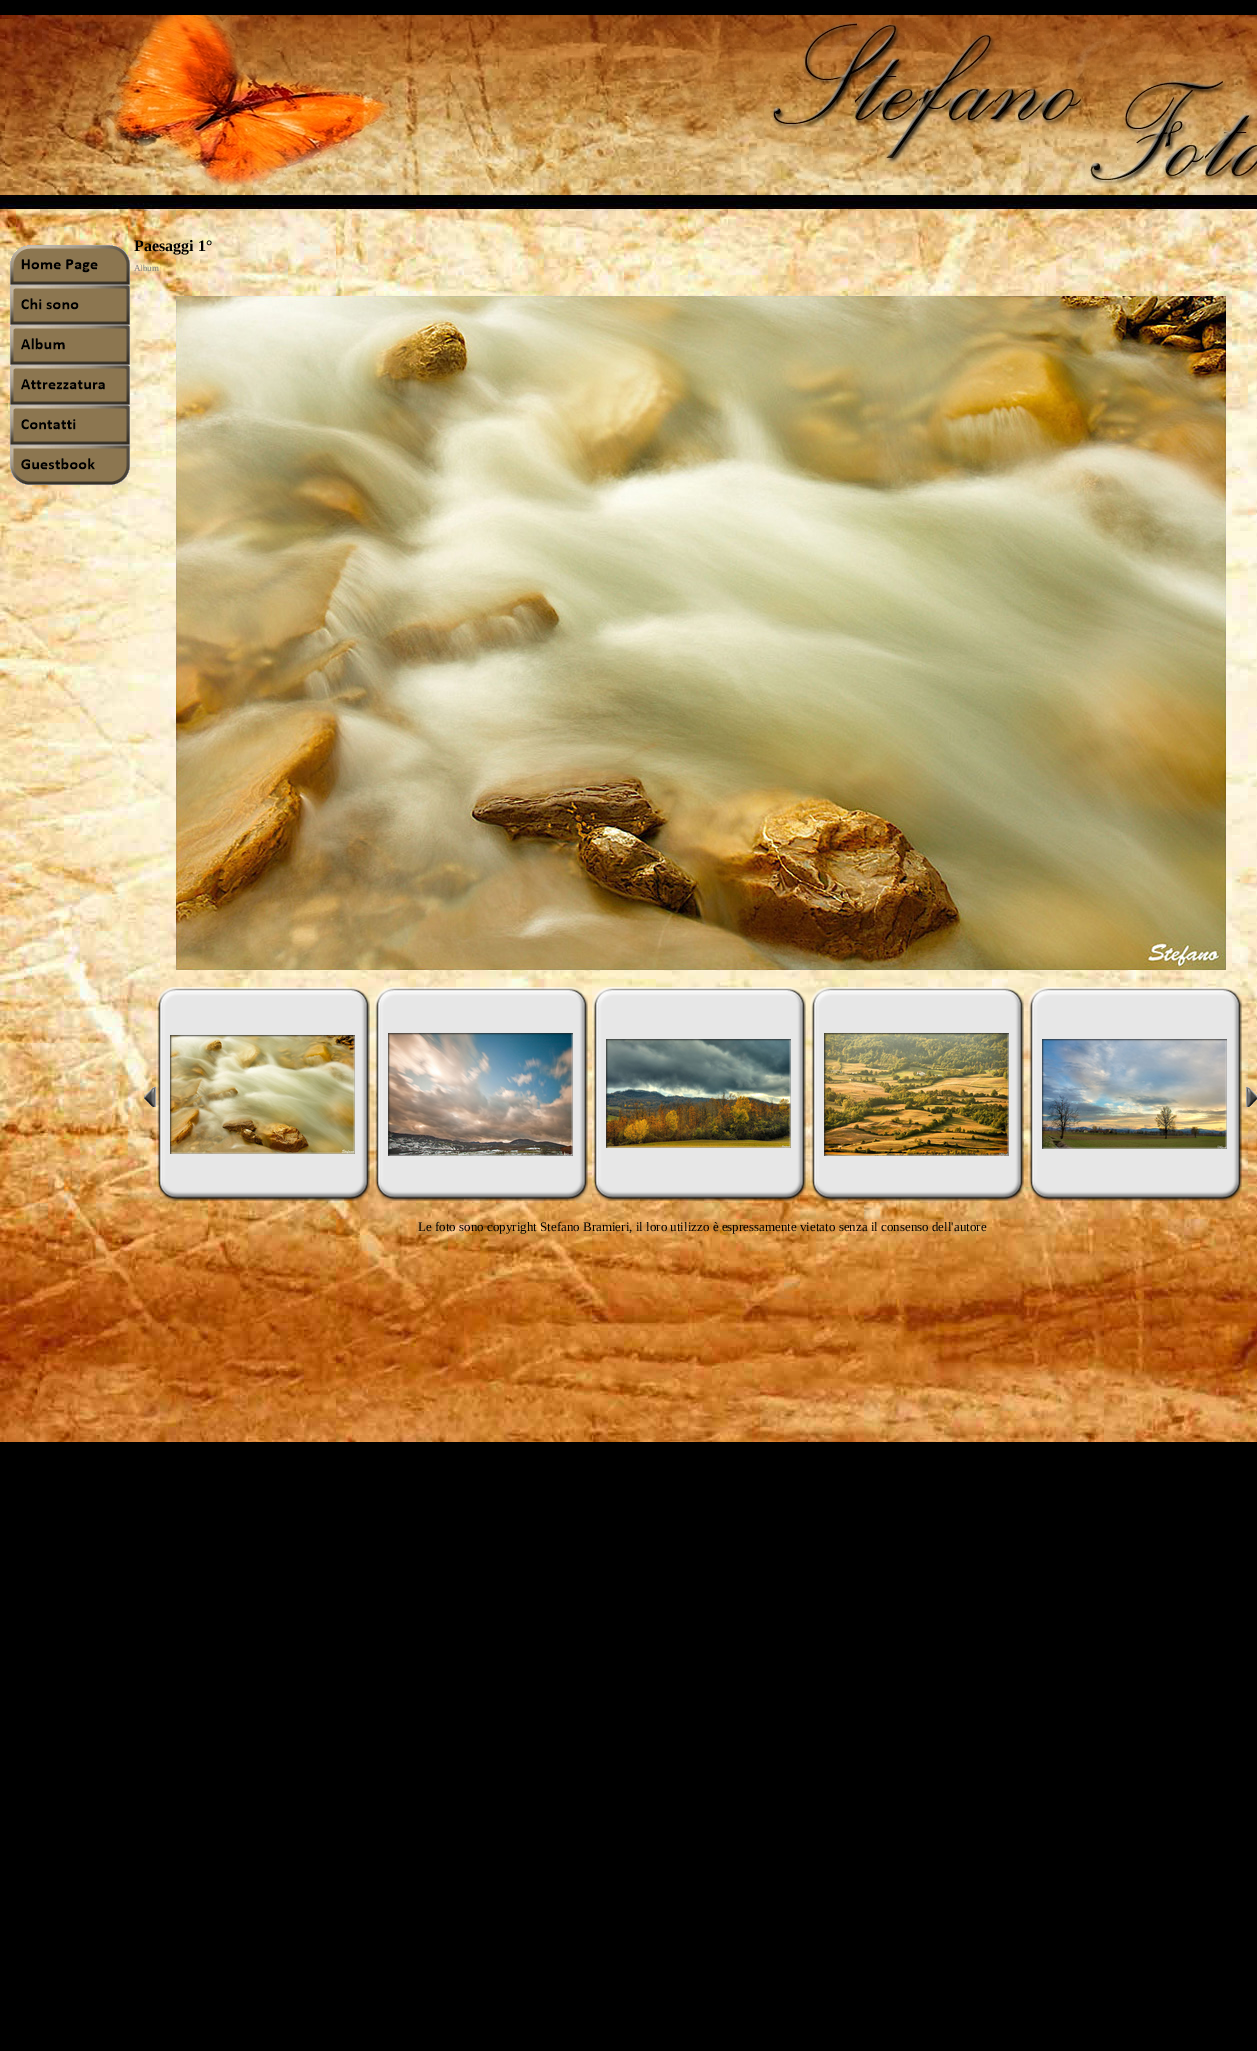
%!PS
<< /PageSize [1257 2051] >> setpagedevice
/C { dup -16 bitshift 255 div exch dup -8 bitshift 255 and 255 div exch 255 and 255 div setrgbcolor } def
/F { [ exch dup neg 0 0 3 -1 roll 0 0 ] selectfont } def
/T { moveto show } def
/R { rectfill } def
/I { 5 dict begin { /h /w /y /x /name } { exch def } forall
  gsave x y translate w h scale
  w h 8 [w 0 0 h 0 0] name (r) file false 3 colorimage grestore end } def
0 2051 translate 1 -1 scale
4 setmiterlimit
16#000000 C
0 0 1257 2051 R
(1.rgb) 0 15 1257 180 I
(2.rgb) 0 195 1257 1247 I
(3.rgb) 10 245 120 40 I
(4.rgb) 10 285 120 40 I
(5.rgb) 10 325 120 40 I
(6.rgb) 10 365 120 40 I
(7.rgb) 10 405 120 40 I
(8.rgb) 10 445 120 40 I
/LiberationSerif-Bold 16 F
(Paesaggi 1°) 134 251 T
/LiberationSerif-Regular 9 F
16#808080 C
(Album) 134 271 T
(9.rgb) 176 296 1050 674 I
(10.rgb) 144 1087 12 20 I
(11.rgb) 156 987 214 214 I
(12.rgb) 374 987 214 214 I
(13.rgb) 592 987 214 214 I
(14.rgb) 810 987 214 214 I
(15.rgb) 1028 987 214 214 I
(16.rgb) 1246 1087 11 20 I
/LiberationSerif-Regular 13 F
16#000000 C
(Le foto sono copyright Stefano Bramieri, il loro utilizzo è espressamente vietato senza il consenso dell'autore) 418 1231 T
showpage
